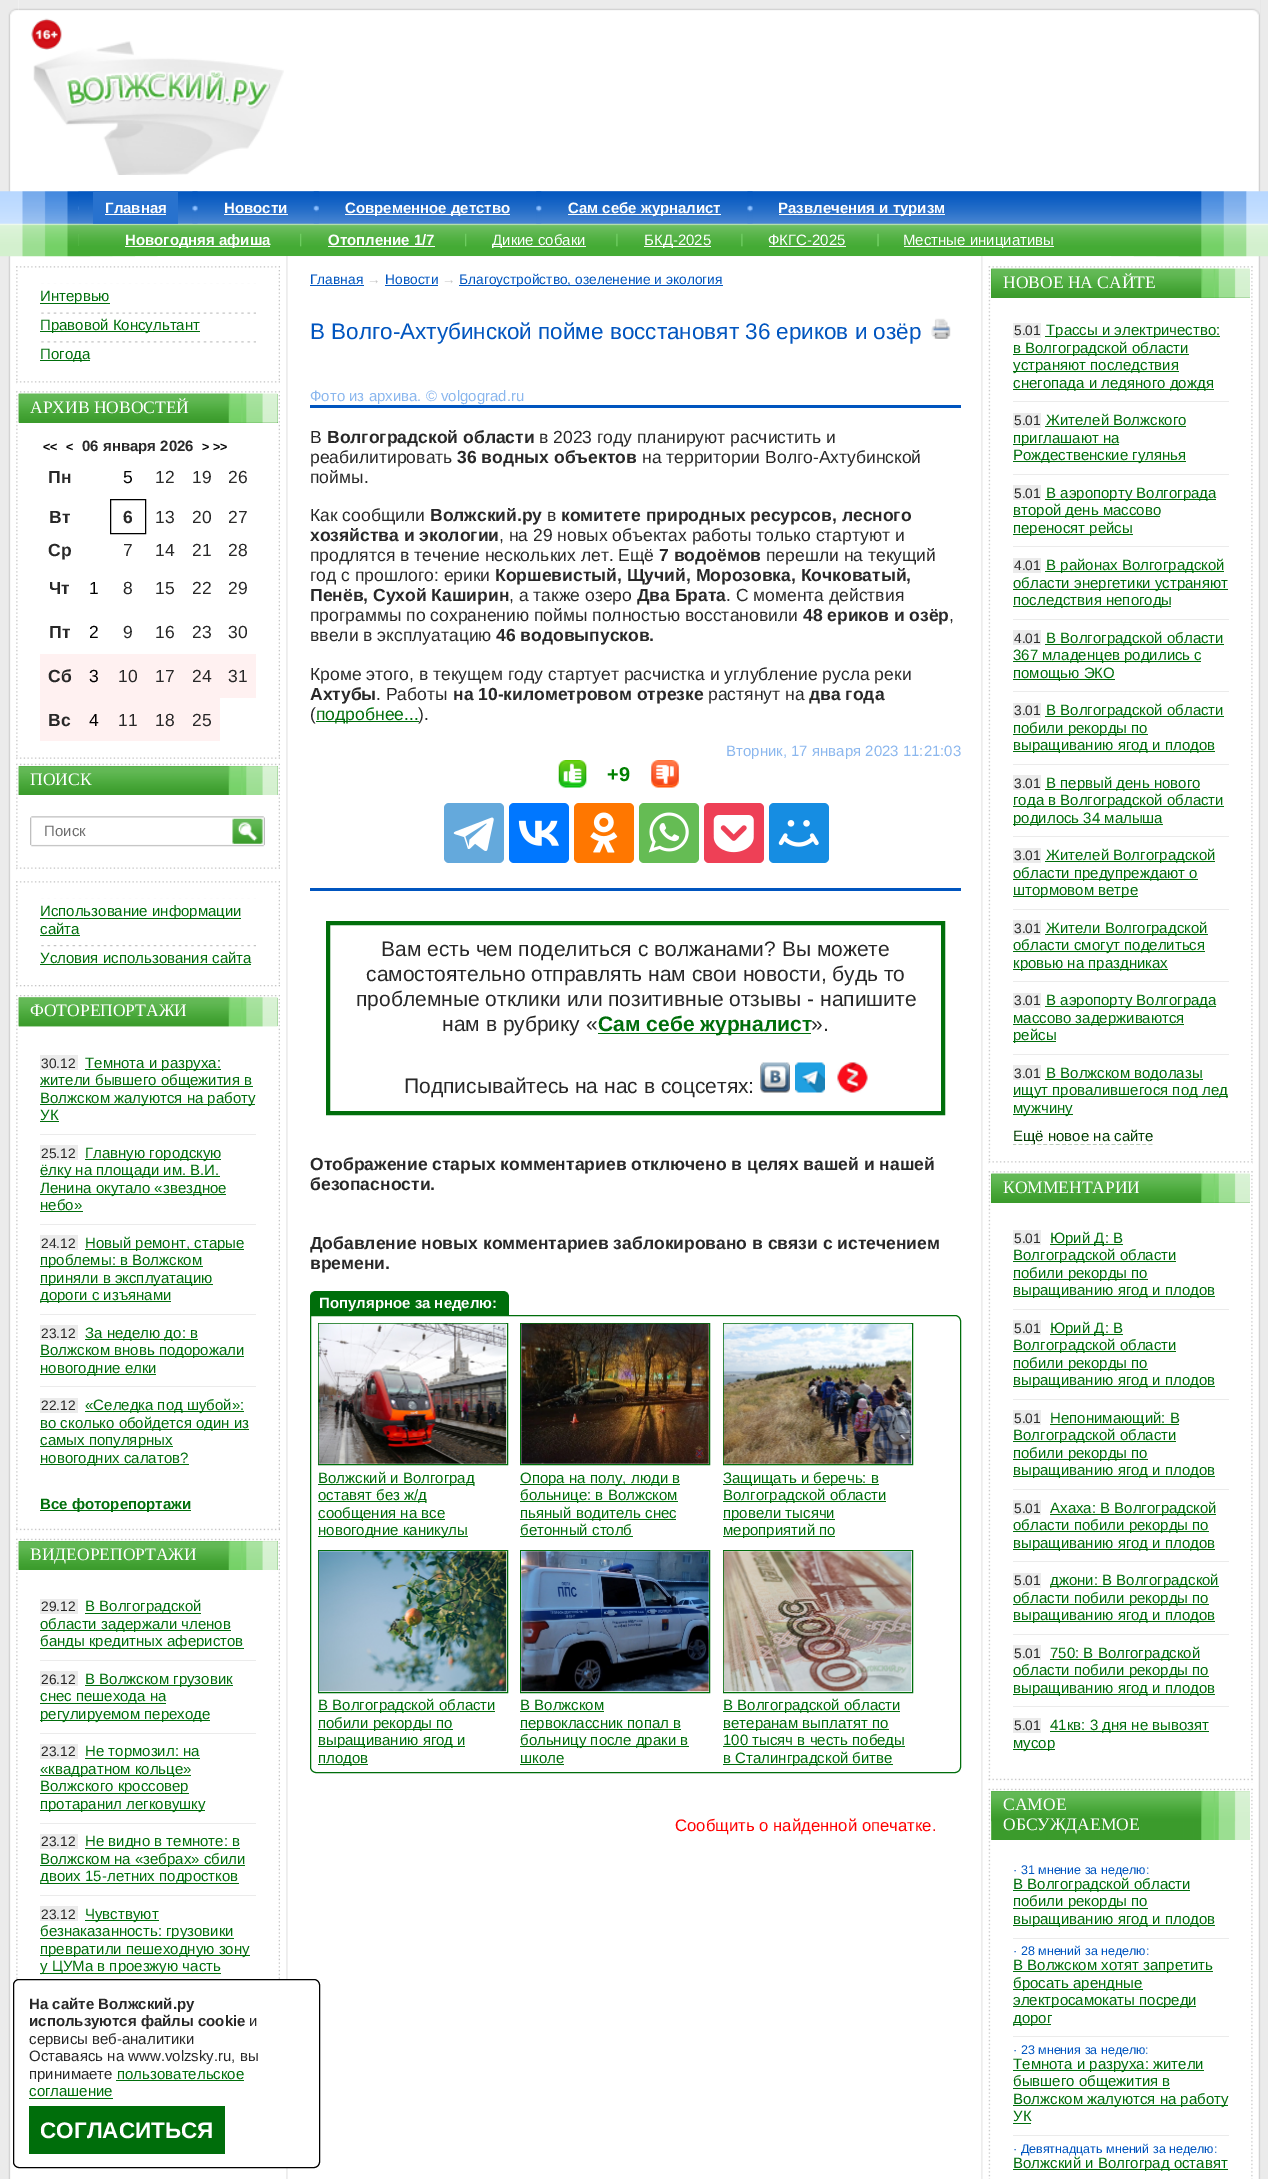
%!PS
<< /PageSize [1268 2179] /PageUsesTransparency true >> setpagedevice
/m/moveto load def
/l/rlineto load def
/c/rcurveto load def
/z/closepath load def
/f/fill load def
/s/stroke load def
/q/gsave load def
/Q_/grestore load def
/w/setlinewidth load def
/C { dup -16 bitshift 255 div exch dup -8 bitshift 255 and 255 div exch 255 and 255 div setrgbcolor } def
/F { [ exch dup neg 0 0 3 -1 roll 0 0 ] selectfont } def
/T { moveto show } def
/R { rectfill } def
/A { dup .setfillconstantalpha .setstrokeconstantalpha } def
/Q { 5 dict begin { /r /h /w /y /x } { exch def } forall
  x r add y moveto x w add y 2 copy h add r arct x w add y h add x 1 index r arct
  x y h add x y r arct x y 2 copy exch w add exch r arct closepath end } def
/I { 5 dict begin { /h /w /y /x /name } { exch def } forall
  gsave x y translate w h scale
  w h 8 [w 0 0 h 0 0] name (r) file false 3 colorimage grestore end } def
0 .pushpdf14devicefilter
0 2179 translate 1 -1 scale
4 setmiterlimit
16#EBEBEB C
0 0 1268 2179 R
(1.rgb) 8 0 974 2179 I
(2.rgb) 981 0 287 2179 I
(3.rgb) 1250 0 10 15 I
(4.rgb) 8 0 11 15 I
16#FFFFFF C
286 11 697 181 R
(5.rgb) 19 0 1231 11 I
(7.rgb) 33 41 251 134 I
(6.rgb) 31 18 31 32 I
(8.rgb) 0 191 158 66 I
(9.rgb) 1111 191 157 66 I
16#4885D1 C
79 191 1111 33 R
(10.rgb) 78 191 1112 33 I
(11.rgb) 78 191 1 19 I
16#2872CE C
93 191 85 33 R
/LiberationSans-Bold 15 F
16#FFFFFF C
(Главная) 105 213 T
105 214 61 1 R
(12.rgb) 192 191 6 33 I
(Новости) 224 213 T
224 214 64 1 R
(13.rgb) 313 191 6 33 I
345 214 165 1 R
(Современное детство) 345 213 T
(14.rgb) 536 191 6 33 I
568 214 153 1 R
(Сам себе журналист) 568 213 T
(12.rgb) 747 191 6 33 I
779 214 166 1 R
(Развлечения и туризм) 778 213 T
(15.rgb) 79 223 1111 34 I
0.19 A
16#75D465 C
78 234 1 12 R
1 A
16#FFFFFF C
125 246 145 1 R
(Новогодняя афиша) 125 245 T
(16.rgb) 300 233 2 14 I
(Отопление 1/7) 328 245 T
328 246 107 1 R
(16.rgb) 465 233 2 14 I
493 246 93 1 R
/LiberationSans-Regular 15 F
(Дикие собаки) 492 245 T
(17.rgb) 616 233 2 14 I
644 246 67 1 R
(БКД-2025) 644 245 T
(17.rgb) 741 233 2 14 I
(ФКГС-2025) 768 245 T
769 246 77 1 R
(18.rgb) 877 233 2 14 I
904 246 150 1 R
(Местные инициативы) 903 245 T
(19.rgb) 16 266 264 118 I
(20.rgb) 16 266 264 4 I
(21.rgb) 16 381 264 3 I
(22.rgb) 41 283 215 1 I
16#006E0B C
40 303 70 1 R
(Интервью) 40 301 T
(23.rgb) 41 312 215 2 I
40 331 160 1 R
(Правовой Консультант) 40 330 T
(24.rgb) 41 341 215 2 I
40 360 50 1 R
(Погода) 40 359 T
(25.rgb) 16 391 264 370 I
(20.rgb) 16 391 264 4 I
(26.rgb) 16 757 264 4 I
16#3B9B2C C
19 394 259 29 R
(27.rgb) 18 393 260 30 I
(28.rgb) 18 393 260 30 I
/LiberationSerif-Regular 17.5 F
16#FFFFFF C
(АРХИВ НОВОСТЕЙ) 30 413 T
/LiberationSans-Bold 12.5 F
16#000000 C
(<<) 43 451 T
(<) 66 451 T
/LiberationSans-Bold 15 F
16#282828 C
(06 января 2026) 82 451 T
/LiberationSans-Bold 12.5 F
16#000000 C
(>) 202 451 T
(>>) 213 451 T
/LiberationSans-Bold 17.5 F
16#282828 C
(Пн) 48 483 T
/LiberationSans-Regular 17.5 F
16#000000 C
(5) 123 483 T
16#282828 C
(12) 155 483 T
(19) 192 483 T
(26) 228 483 T
/LiberationSans-Bold 17.5 F
(Вт) 49 523 T
16#000000 C
110.5 499.5 35 34 rectstroke
16#282828 C
(6) 123 523 T
/LiberationSans-Regular 17.5 F
(13) 155 523 T
(20) 192 523 T
(27) 228 523 T
/LiberationSans-Bold 17.5 F
(Ср) 48 556 T
/LiberationSans-Regular 17.5 F
(7) 123 556 T
(14) 155 556 T
(21) 192 556 T
(28) 228 556 T
/LiberationSans-Bold 17.5 F
(Чт) 49 594 T
/LiberationSans-Regular 17.5 F
16#000000 C
(1) 89 594 T
16#282828 C
(8) 123 594 T
(15) 155 594 T
(22) 192 594 T
(29) 228 594 T
/LiberationSans-Bold 17.5 F
(Пт) 49 638 T
/LiberationSans-Regular 17.5 F
16#000000 C
(2) 89 638 T
16#282828 C
(9) 123 638 T
(16) 155 638 T
(23) 192 638 T
(30) 228 638 T
16#FFF1F1 C
40 654 216 44 R
/LiberationSans-Bold 17.5 F
16#282828 C
(Сб) 48 682 T
/LiberationSans-Regular 17.5 F
16#000000 C
(3) 89 682 T
16#282828 C
(10) 118 682 T
(17) 155 682 T
(24) 192 682 T
(31) 228 682 T
16#FFF1F1 C
40 698 180 43 R
/LiberationSans-Bold 17.5 F
16#282828 C
(Вс) 48 726 T
/LiberationSans-Regular 17.5 F
16#000000 C
(4) 89 726 T
16#282828 C
(11) 118 726 T
(18) 155 726 T
(25) 192 726 T
(29.rgb) 16 763 264 108 I
(30.rgb) 16 763 264 5 I
(26.rgb) 16 867 264 4 I
16#3B9B2C C
19 766 259 29 R
(31.rgb) 18 766 260 29 I
(32.rgb) 18 766 260 29 I
/LiberationSerif-Regular 17.5 F
16#FFFFFF C
(ПОИСК) 30 785 T
(33.rgb) 30 816 235 31 I
/LiberationSans-Regular 15 F
16#6C6C6C C
(Поиск) 44 836 T
(34.rgb) 16 881 264 107 I
(20.rgb) 16 881 264 4 I
(35.rgb) 16 985 264 3 I
(22.rgb) 41 898 215 1 I
16#006E0B C
40 918 201 1 R
(Использование информации) 40 916 T
(сайта) 40 934 T
40 935 40 1 R
(36.rgb) 41 945 215 2 I
(Условия использования сайта) 40 963 T
40 964 211 1 R
(37.rgb) 16 995 264 538 I
(38.rgb) 16 995 264 4 I
(39.rgb) 16 1528 264 5 I
(40.rgb) 18 997 260 30 I
(41.rgb) 18 997 260 30 I
/LiberationSerif-Regular 17.5 F
16#FFFFFF C
(ФОТОРЕПОРТАЖИ) 30 1016 T
16#EBEBEB C
40 1055 38 15 R
/LiberationSans-Regular 13.75 F
16#282828 C
(30.12) 41 1068 T
16#006E0B C
85 1069 136 1 R
/LiberationSans-Regular 15 F
(Темнота и разруха:) 85 1068 T
40 1086 213 1 R
(жители бывшего общежития в) 40 1085 T
40 1104 215 1 R
(Волжском жалуются на работу) 40 1103 T
(УК) 40 1120 T
40 1121 19 1 R
16#EBEBEB C
40 1134 216 1 R
40 1145 38 15 R
/LiberationSans-Regular 13.75 F
16#282828 C
(25.12) 41 1158 T
16#006E0B C
85 1159 136 1 R
/LiberationSans-Regular 15 F
(Главную городскую) 85 1158 T
40 1176 180 1 R
(ёлку на площади им. В.И.) 40 1175 T
40 1194 186 1 R
(Ленина окутало «звездное) 40 1193 T
(небо») 40 1210 T
40 1211 43 1 R
16#EBEBEB C
40 1224 216 1 R
40 1235 38 15 R
/LiberationSans-Regular 13.75 F
16#282828 C
(24.12) 41 1248 T
16#006E0B C
85 1249 159 1 R
/LiberationSans-Regular 15 F
(Новый ремонт, старые) 85 1248 T
40 1266 163 1 R
(проблемы: в Волжском) 40 1265 T
40 1284 173 1 R
(приняли в эксплуатацию) 40 1283 T
40 1301 131 1 R
(дороги с изъянами) 40 1300 T
16#EBEBEB C
40 1314 216 1 R
40 1325 38 15 R
/LiberationSans-Regular 13.75 F
16#282828 C
(23.12) 41 1338 T
16#006E0B C
85 1339 113 1 R
/LiberationSans-Regular 15 F
(За неделю до: в) 85 1338 T
40 1356 204 1 R
(Волжском вновь подорожали) 40 1355 T
40 1374 116 1 R
(новогодние елки) 40 1373 T
16#EBEBEB C
40 1386 216 1 R
40 1398 38 15 R
/LiberationSans-Regular 13.75 F
16#282828 C
(22.12) 41 1410 T
16#006E0B C
85 1411 159 1 R
/LiberationSans-Regular 15 F
(«Селедка под шубой»:) 85 1410 T
40 1429 209 1 R
(во сколько обойдется один из) 40 1428 T
40 1446 133 1 R
(самых популярных) 40 1445 T
40 1464 149 1 R
(новогодних салатов?) 40 1463 T
40 1510 151 1 R
/LiberationSans-Bold 15 F
(Все фоторепортажи) 40 1509 T
(42.rgb) 16 1538 264 442 I
(30.rgb) 16 1538 264 5 I
16#3B9B2C C
19 1541 259 29 R
(31.rgb) 18 1541 260 29 I
(32.rgb) 18 1541 260 29 I
/LiberationSerif-Regular 17.5 F
16#FFFFFF C
(ВИДЕОРЕПОРТАЖИ) 30 1560 T
16#EBEBEB C
40 1599 38 15 R
/LiberationSans-Regular 13.75 F
16#282828 C
(29.12) 41 1611 T
16#006E0B C
85 1613 116 1 R
/LiberationSans-Regular 15 F
(В Волгоградской) 85 1611 T
40 1630 191 1 R
(области задержали членов) 40 1629 T
40 1648 204 1 R
(банды кредитных аферистов) 40 1646 T
16#EBEBEB C
40 1660 216 1 R
40 1671 38 15 R
/LiberationSans-Regular 13.75 F
16#282828 C
(26.12) 41 1684 T
16#006E0B C
85 1685 148 1 R
/LiberationSans-Regular 15 F
(В Волжском грузовик) 85 1684 T
40 1703 126 1 R
(снес пешехода на) 40 1701 T
40 1720 170 1 R
(регулируемом переходе) 40 1719 T
16#EBEBEB C
40 1733 216 1 R
40 1744 38 15 R
/LiberationSans-Regular 13.75 F
16#282828 C
(23.12) 41 1756 T
16#006E0B C
85 1758 115 1 R
/LiberationSans-Regular 15 F
(Не тормозил: на) 85 1756 T
40 1775 151 1 R
(«квадратном кольце») 40 1774 T
40 1793 149 1 R
(Волжского кроссовер) 40 1791 T
40 1810 165 1 R
(протаранил легковушку) 40 1809 T
16#EBEBEB C
40 1823 216 1 R
40 1834 38 15 R
/LiberationSans-Regular 13.75 F
16#282828 C
(23.12) 41 1846 T
16#006E0B C
85 1848 155 1 R
/LiberationSans-Regular 15 F
(Не видно в темноте: в) 85 1846 T
40 1865 205 1 R
(Волжском на «зебрах» сбили) 40 1864 T
40 1883 199 1 R
(двоих 15-летних подростков) 40 1881 T
16#EBEBEB C
40 1895 216 1 R
40 1906 38 15 R
/LiberationSans-Regular 13.75 F
16#282828 C
(23.12) 41 1919 T
16#006E0B C
85 1920 74 1 R
/LiberationSans-Regular 15 F
(Чувствуют) 85 1919 T
40 1938 194 1 R
(безнаказанность: грузовики) 40 1936 T
40 1955 210 1 R
(превратили пешеходную зону) 40 1954 T
40 1973 181 1 R
(у ЦУМа в проезжую часть) 40 1971 T
/LiberationSans-Regular 13.75 F
16#0055BF C
(Главная) 310 284 T
310 285 54 1 R
16#C4C4C4 C
(→) 367 284 T
16#0055BF C
(Новости) 385 284 T
385 285 53 1 R
16#C4C4C4 C
(→) 442 284 T
16#0055BF C
459 285 264 1 R
(Благоустройство, озеленение и экология) 459 284 T
/LiberationSans-Regular 22.5 F
(В Волго-Ахтубинской пойме восстановят 36 ериков и озёр) 310 339 T
(43.rgb) 931 318 20 21 I
310 405 651 3 R
/LiberationSans-Regular 15 F
16#8BB7EE C
(Фото из архива. © volgograd.ru) 310 401 T
/LiberationSans-Regular 17.5 F
16#282828 C
(В) 310 443 T
/LiberationSans-Bold 17.5 F
(Волгоградской области) 327 443 T
/LiberationSans-Regular 17.5 F
(в 2023 году планируют расчистить и) 539 443 T
(реабилитировать) 310 463 T
/LiberationSans-Bold 17.5 F
(36 водных объектов) 457 463 T
/LiberationSans-Regular 17.5 F
(на территории Волго-Ахтубинской) 642 463 T
(поймы.) 310 483 T
(Как сообщили) 310 521 T
/LiberationSans-Bold 17.5 F
(Волжский.ру) 430 521 T
/LiberationSans-Regular 17.5 F
(в) 547 521 T
/LiberationSans-Bold 17.5 F
(комитете природных ресурсов, лесного) 561 521 T
(хозяйства и экологии) 310 541 T
/LiberationSans-Regular 17.5 F
(, на 29 новых объектах работы только стартуют и) 499 541 T
(продлятся в течение нескольких лет. Ещё) 310 561 T
/LiberationSans-Bold 17.5 F
(7 водоёмов) 659 561 T
/LiberationSans-Regular 17.5 F
(перешли на текущий) 766 561 T
(год с прошлого: ерики) 310 581 T
/LiberationSans-Bold 17.5 F
(Коршевистый, Щучий, Морозовка, Кочковатый,) 495 581 T
(Пенёв, Сухой Каширин) 310 601 T
/LiberationSans-Regular 17.5 F
(, а также озеро) 509 601 T
/LiberationSans-Bold 17.5 F
(Два Брата) 637 601 T
/LiberationSans-Regular 17.5 F
(. С момента действия) 726 601 T
(программы по сохранению поймы полностью восстановили) 310 621 T
/LiberationSans-Bold 17.5 F
(48 ериков и озёр) 803 621 T
/LiberationSans-Regular 17.5 F
(,) 949 621 T
(ввели в эксплуатацию) 310 641 T
/LiberationSans-Bold 17.5 F
(46 водовыпусков.) 496 641 T
/LiberationSans-Regular 17.5 F
(Кроме этого, в текущем году стартует расчистка и углубление русла реки) 310 680 T
/LiberationSans-Bold 17.5 F
(Ахтубы) 310 700 T
/LiberationSans-Regular 17.5 F
(. Работы) 376 700 T
/LiberationSans-Bold 17.5 F
(на 10-километровом отрезке) 453 700 T
/LiberationSans-Regular 17.5 F
(растянут на) 708 700 T
/LiberationSans-Bold 17.5 F
(два года) 809 700 T
/LiberationSans-Regular 17.5 F
(\() 310 720 T
16#006E0B C
316 721 103 1 R
(подробнее...) 316 720 T
16#282828 C
(\).) 418 720 T
/LiberationSans-Regular 15 F
16#8BB7EE C
(Вторник, 17 января 2023 11:21:03) 726 756 T
(44.rgb) 558 760 29 28 I
/LiberationSans-Bold 20 F
16#008000 C
(+9) 607 781 T
(45.rgb) 651 760 28 28 I
16#0055BF C
310 888 651 3 R
16#64A9DC C
444 803 60 60 5 Q f
(46.rgb) 453 817 41 34 I
16#0077FF C
509 803 60 60 5 Q f
(47.rgb) 518 820 41 26 I
16#FF7700 C
574 803 60 60 5 Q f
(48.rgb) 590 812 28 41 I
16#65BC54 C
639 803 60 60 5 Q f
(49.rgb) 648 812 41 41 I
16#EE4056 C
704 803 60 60 5 Q f
(50.rgb) 713 815 41 38 I
16#168DE2 C
769 803 60 60 5 Q f
(51.rgb) 778 820 41 27 I
16#006E0B C
4 w
328 923 615 190 rectstroke
/LiberationSans-Regular 21 F
16#282828 C
(Вам есть чем поделиться с волжанами? Вы можете) 381 956 T
(самостоятельно отправлять нам свои новости, будь то) 366 981 T
(проблемные отклики или позитивные отзывы - напишите) 356 1006 T
(нам в рубрику «) 442 1031 T
16#006E0B C
598 1033 213 1 R
/LiberationSans-Bold 21 F
(Сам себе журналист) 598 1031 T
/LiberationSans-Regular 21 F
16#282828 C
(».) 811 1031 T
(Подписывайтесь на нас в соцсетях:) 404 1093 T
(52.rgb) 760 1062 30 31 I
(53.rgb) 795 1062 30 31 I
(54.rgb) 837 1062 31 31 I
/LiberationSans-Bold 17.5 F
(Отображение старых комментариев отключено в целях вашей и нашей) 310 1170 T
(безопасности.) 310 1190 T
(Добавление новых комментариев заблокировано в связи с истечением) 310 1249 T
(времени.) 310 1269 T
16#006E0B C
316 1291 m 187 0 l 3.5 0 6 2.5 6 6 c 0 18 l -199 0 l 0 -18 l 0 -3.5 2.5 -6 6 -6 c z f
/LiberationSans-Bold 15 F
16#FFFFFF C
(Популярное за неделю:) 319 1308 T
16#006E0B C
1 w
310.5 1315.5 m 644.5 0 l 3 0 5.5 2.5 5.5 5.5 c 0 446 l 0 3 -2.5 5.5 -5.5 5.5 c -639 0 l -3 0 -5.5 -2.5 -5.5 -5.5 c z s
318.5 1323.5 189 141 rectstroke
(55.rgb) 318 1323 189 141 I
318 1484 156 1 R
/LiberationSans-Regular 15 F
(Волжский и Волгоград) 318 1483 T
318 1501 108 1 R
(оставят без ж/д) 318 1500 T
318 1519 127 1 R
(сообщения на все) 318 1518 T
318 1536 150 1 R
(новогодние каникулы) 318 1535 T
520.5 1323.5 189 141 rectstroke
(56.rgb) 521 1323 188 141 I
520 1484 160 1 R
(Опора на полу, люди в) 520 1483 T
520 1501 158 1 R
(больнице: в Волжском) 520 1500 T
520 1519 156 1 R
(пьяный водитель снес) 520 1518 T
(бетонный столб) 520 1535 T
520 1536 113 1 R
723.5 1323.5 189 141 rectstroke
(57.rgb) 723 1323 189 141 I
723 1484 156 1 R
(Защищать и беречь: в) 723 1483 T
723 1501 163 1 R
(Волгоградской области) 723 1500 T
723 1519 112 1 R
(провели тысячи) 723 1518 T
723 1536 112 1 R
(мероприятий по) 723 1535 T
318.5 1550.5 189 142 rectstroke
(58.rgb) 318 1551 189 141 I
318 1711 177 1 R
(В Волгоградской области) 318 1710 T
318 1729 135 1 R
(побили рекорды по) 318 1728 T
318 1746 147 1 R
(выращиванию ягод и) 318 1745 T
318 1764 50 1 R
(плодов) 318 1763 T
520.5 1550.5 189 142 rectstroke
(59.rgb) 521 1551 188 141 I
(В Волжском) 520 1710 T
520 1711 84 1 R
520 1729 161 1 R
(первоклассник попал в) 520 1728 T
520 1746 169 1 R
(больницу после драки в) 520 1745 T
(школе) 520 1763 T
520 1764 44 1 R
723.5 1550.5 189 142 rectstroke
(60.rgb) 723 1551 189 141 I
723 1711 177 1 R
(В Волгоградской области) 723 1710 T
723 1729 166 1 R
(ветеранам выплатят по) 723 1728 T
723 1746 182 1 R
(100 тысяч в честь победы) 723 1745 T
723 1764 170 1 R
(в Сталинградской битве) 723 1763 T
/LiberationSans-Regular 16.7 F
16#FF0000 C
(Сообщить о найденной опечатке.) 675 1831 T
(61.rgb) 988 266 265 898 I
(62.rgb) 988 266 265 4 I
(63.rgb) 988 1161 265 3 I
16#3B9B2C C
991 269 259 29 R
(64.rgb) 991 268 259 30 I
(65.rgb) 991 268 259 30 I
/LiberationSerif-Regular 17.5 F
16#FFFFFF C
(НОВОЕ НА САЙТЕ) 1003 288 T
16#EBEBEB C
1013 323 28 15 R
/LiberationSans-Regular 13.75 F
16#282828 C
(5.01) 1014 335 T
16#006E0B C
1045 336 175 1 R
/LiberationSans-Regular 15 F
(Трассы и электричество:) 1046 335 T
1013 354 176 1 R
(в Волгоградской области) 1013 353 T
1013 371 166 1 R
(устраняют последствия) 1013 370 T
1013 389 201 1 R
(снегопада и ледяного дождя) 1013 388 T
16#EBEBEB C
1013 401 216 1 R
1013 413 28 15 R
/LiberationSans-Regular 13.75 F
16#282828 C
(5.01) 1014 425 T
/LiberationSans-Regular 15 F
16#006E0B C
(Жителей Волжского) 1046 425 T
1045 426 141 1 R
1013 444 106 1 R
(приглашают на) 1013 443 T
1013 461 173 1 R
(Рождественские гулянья) 1013 460 T
16#EBEBEB C
1013 474 216 1 R
1013 485 28 15 R
/LiberationSans-Regular 13.75 F
16#282828 C
(5.01) 1014 498 T
16#006E0B C
1045 499 171 1 R
/LiberationSans-Regular 15 F
(В аэропорту Волгограда) 1046 498 T
1013 516 147 1 R
(второй день массово) 1013 515 T
1013 534 120 1 R
(переносят рейсы) 1013 533 T
16#EBEBEB C
1013 546 216 1 R
1013 558 28 15 R
/LiberationSans-Regular 13.75 F
16#282828 C
(4.01) 1014 570 T
16#006E0B C
1045 571 179 1 R
/LiberationSans-Regular 15 F
(В районах Волгоградской) 1046 570 T
1013 589 215 1 R
(области энергетики устраняют) 1013 588 T
1013 606 158 1 R
(последствия непогоды) 1013 605 T
16#EBEBEB C
1013 619 216 1 R
1013 630 28 15 R
/LiberationSans-Regular 13.75 F
16#282828 C
(4.01) 1014 643 T
16#006E0B C
1045 644 179 1 R
/LiberationSans-Regular 15 F
(В Волгоградской области) 1046 643 T
1013 661 188 1 R
(367 младенцев родились с) 1013 660 T
1013 679 102 1 R
(помощью ЭКО) 1013 678 T
16#EBEBEB C
1013 691 216 1 R
1013 703 28 15 R
/LiberationSans-Regular 13.75 F
16#282828 C
(3.01) 1014 715 T
16#006E0B C
1045 716 179 1 R
/LiberationSans-Regular 15 F
(В Волгоградской области) 1046 715 T
1013 734 135 1 R
(побили рекорды по) 1013 733 T
1013 751 202 1 R
(выращиванию ягод и плодов) 1013 750 T
16#EBEBEB C
1013 764 216 1 R
1013 775 28 15 R
/LiberationSans-Regular 13.75 F
16#282828 C
(3.01) 1014 788 T
16#006E0B C
1045 789 155 1 R
/LiberationSans-Regular 15 F
(В первый день нового) 1046 788 T
1013 806 211 1 R
(года в Волгоградской области) 1013 805 T
1013 824 150 1 R
(родилось 34 малыша) 1013 823 T
16#EBEBEB C
1013 836 216 1 R
1013 848 28 15 R
/LiberationSans-Regular 13.75 F
16#282828 C
(3.01) 1014 860 T
16#006E0B C
1045 861 170 1 R
/LiberationSans-Regular 15 F
(Жителей Волгоградской) 1046 860 T
1013 879 185 1 R
(области предупреждают о) 1013 878 T
1013 896 125 1 R
(штормовом ветре) 1013 895 T
16#EBEBEB C
1013 909 216 1 R
1013 920 28 15 R
/LiberationSans-Regular 13.75 F
16#282828 C
(3.01) 1014 933 T
16#006E0B C
1045 934 163 1 R
/LiberationSans-Regular 15 F
(Жители Волгоградской) 1046 933 T
1013 951 192 1 R
(области смогут поделиться) 1013 950 T
1013 969 155 1 R
(кровью на праздниках) 1013 968 T
16#EBEBEB C
1013 981 216 1 R
1013 993 28 15 R
/LiberationSans-Regular 13.75 F
16#282828 C
(3.01) 1014 1005 T
16#006E0B C
1045 1006 171 1 R
/LiberationSans-Regular 15 F
(В аэропорту Волгограда) 1046 1005 T
1013 1024 171 1 R
(массово задерживаются) 1013 1023 T
1013 1041 43 1 R
(рейсы) 1013 1040 T
16#EBEBEB C
1013 1054 216 1 R
1013 1065 28 15 R
/LiberationSans-Regular 13.75 F
16#282828 C
(3.01) 1014 1078 T
16#006E0B C
1045 1079 158 1 R
/LiberationSans-Regular 15 F
(В Волжском водолазы) 1046 1078 T
1013 1096 215 1 R
(ищут провалившегося под лед) 1013 1095 T
1013 1114 60 1 R
(мужчину) 1013 1113 T
16#023C00 C
(Ещё новое на сайте) 1013 1141 T
q
1013 313 216 832 rectclip
1.2 w
[3.75 2.44] 0 setdash
1012.5 1145.5 m 140 0 l s
Q_
(66.rgb) 988 1171 265 612 I
(62.rgb) 988 1171 265 4 I
(67.rgb) 988 1778 265 5 I
16#3B9B2C C
991 1174 259 29 R
(64.rgb) 991 1173 259 30 I
(68.rgb) 991 1173 259 30 I
/LiberationSerif-Regular 17.5 F
16#FFFFFF C
(КОММЕНТАРИИ) 1003 1193 T
16#EBEBEB C
1013 1230 28 15 R
/LiberationSans-Regular 13.75 F
16#282828 C
(5.01) 1014 1243 T
16#006E0B C
1050 1244 73 1 R
/LiberationSans-Regular 15 F
(Юрий Д: В) 1050 1243 T
1013 1261 163 1 R
(Волгоградской области) 1013 1260 T
1013 1279 135 1 R
(побили рекорды по) 1013 1278 T
1013 1296 202 1 R
(выращиванию ягод и плодов) 1013 1295 T
16#EBEBEB C
1013 1309 216 1 R
1013 1320 28 15 R
/LiberationSans-Regular 13.75 F
16#282828 C
(5.01) 1014 1333 T
16#006E0B C
1050 1334 73 1 R
/LiberationSans-Regular 15 F
(Юрий Д: В) 1050 1333 T
1013 1351 163 1 R
(Волгоградской области) 1013 1350 T
1013 1369 135 1 R
(побили рекорды по) 1013 1368 T
1013 1386 202 1 R
(выращиванию ягод и плодов) 1013 1385 T
16#EBEBEB C
1013 1399 216 1 R
1013 1410 28 15 R
/LiberationSans-Regular 13.75 F
16#282828 C
(5.01) 1014 1423 T
16#006E0B C
1050 1424 129 1 R
/LiberationSans-Regular 15 F
(Непонимающий: В) 1050 1423 T
1013 1441 163 1 R
(Волгоградской области) 1013 1440 T
1013 1459 135 1 R
(побили рекорды по) 1013 1458 T
1013 1476 202 1 R
(выращиванию ягод и плодов) 1013 1475 T
16#EBEBEB C
1013 1489 216 1 R
1013 1500 28 15 R
/LiberationSans-Regular 13.75 F
16#282828 C
(5.01) 1014 1513 T
16#006E0B C
1050 1514 166 1 R
/LiberationSans-Regular 15 F
(Ахаха: В Волгоградской) 1050 1513 T
1013 1531 196 1 R
(области побили рекорды по) 1013 1530 T
1013 1549 202 1 R
(выращиванию ягод и плодов) 1013 1548 T
16#EBEBEB C
1013 1561 216 1 R
1013 1573 28 15 R
/LiberationSans-Regular 13.75 F
16#282828 C
(5.01) 1014 1585 T
16#006E0B C
1050 1586 169 1 R
/LiberationSans-Regular 15 F
(джони: В Волгоградской) 1050 1585 T
1013 1604 196 1 R
(области побили рекорды по) 1013 1603 T
1013 1621 202 1 R
(выращиванию ягод и плодов) 1013 1620 T
16#EBEBEB C
1013 1634 216 1 R
1013 1645 28 15 R
/LiberationSans-Regular 13.75 F
16#282828 C
(5.01) 1014 1658 T
16#006E0B C
1050 1659 150 1 R
/LiberationSans-Regular 15 F
(750: В Волгоградской) 1050 1658 T
1013 1676 196 1 R
(области побили рекорды по) 1013 1675 T
1013 1694 202 1 R
(выращиванию ягод и плодов) 1013 1693 T
16#EBEBEB C
1013 1706 216 1 R
1013 1718 28 15 R
/LiberationSans-Regular 13.75 F
16#282828 C
(5.01) 1014 1730 T
16#006E0B C
1050 1731 159 1 R
/LiberationSans-Regular 15 F
(41кв: 3 дня не вывозят) 1050 1730 T
1013 1749 42 1 R
(мусор) 1013 1748 T
(69.rgb) 988 1788 265 391 I
(70.rgb) 988 1788 265 5 I
(71.rgb) 991 1791 259 49 I
(72.rgb) 991 1791 259 31 I
/LiberationSerif-Regular 17.5 F
16#FFFFFF C
(САМОЕ) 1003 1810 T
(ОБСУЖДАЕМОЕ) 1003 1830 T
/LiberationSans-Regular 12.5 F
16#0055BF C
(· 31 мнение за неделю:) 1013 1874 T
16#006E0B C
1013 1890 177 1 R
/LiberationSans-Regular 15 F
(В Волгоградской области) 1013 1889 T
1013 1908 135 1 R
(побили рекорды по) 1013 1906 T
1013 1925 202 1 R
(выращиванию ягод и плодов) 1013 1924 T
16#EBEBEB C
1013 1938 216 1 R
/LiberationSans-Regular 12.5 F
16#0055BF C
(· 28 мнений за неделю:) 1013 1955 T
16#006E0B C
1013 1971 200 1 R
/LiberationSans-Regular 15 F
(В Волжском хотят запретить) 1013 1970 T
1013 1989 130 1 R
(бросать арендные) 1013 1988 T
1013 2006 183 1 R
(электросамокаты посреди) 1013 2005 T
1013 2024 38 1 R
q
1013 1858 216 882 rectclip
(дорог) 1013 2023 T
Q_
16#EBEBEB C
1013 2036 216 1 R
/LiberationSans-Regular 12.5 F
16#0055BF C
(· 23 мнения за неделю:) 1013 2054 T
16#006E0B C
1013 2070 191 1 R
/LiberationSans-Regular 15 F
(Темнота и разруха: жители) 1013 2069 T
1013 2088 157 1 R
(бывшего общежития в) 1013 2086 T
1013 2105 215 1 R
(Волжском жалуются на работу) 1013 2104 T
(УК) 1013 2121 T
1013 2123 18 1 R
16#EBEBEB C
1013 2135 216 1 R
/LiberationSans-Regular 12.5 F
16#0055BF C
(· Девятнадцать мнений за неделю:) 1013 2153 T
16#006E0B C
1013 2169 215 1 R
/LiberationSans-Regular 15 F
(Волжский и Волгоград оставят) 1013 2168 T
16#FFFFFF C
13.5 1979.5 306 188 5.5 Q q f Q_
16#000000 C
s
/LiberationSans-Bold 15 F
16#282828 C
(На сайте Волжский.ру) 29 2009 T
(используются файлы cookie) 29 2026 T
/LiberationSans-Regular 15 F
(и) 249 2026 T
(сервисы веб-аналитики) 29 2044 T
(Оставаясь на www.volzsky.ru, вы) 29 2061 T
(принимаете) 29 2079 T
16#006E0B C
(пользовательское) 117 2079 T
116 2080 128 1 R
(соглашение) 29 2096 T
29 2098 84 1 R
29 2106 196 48 R
/LiberationSans-Bold 22.5 F
16#FFFFFF C
(СОГЛАСИТЬСЯ) 40 2138 T
.poppdf14devicefilter showpage
